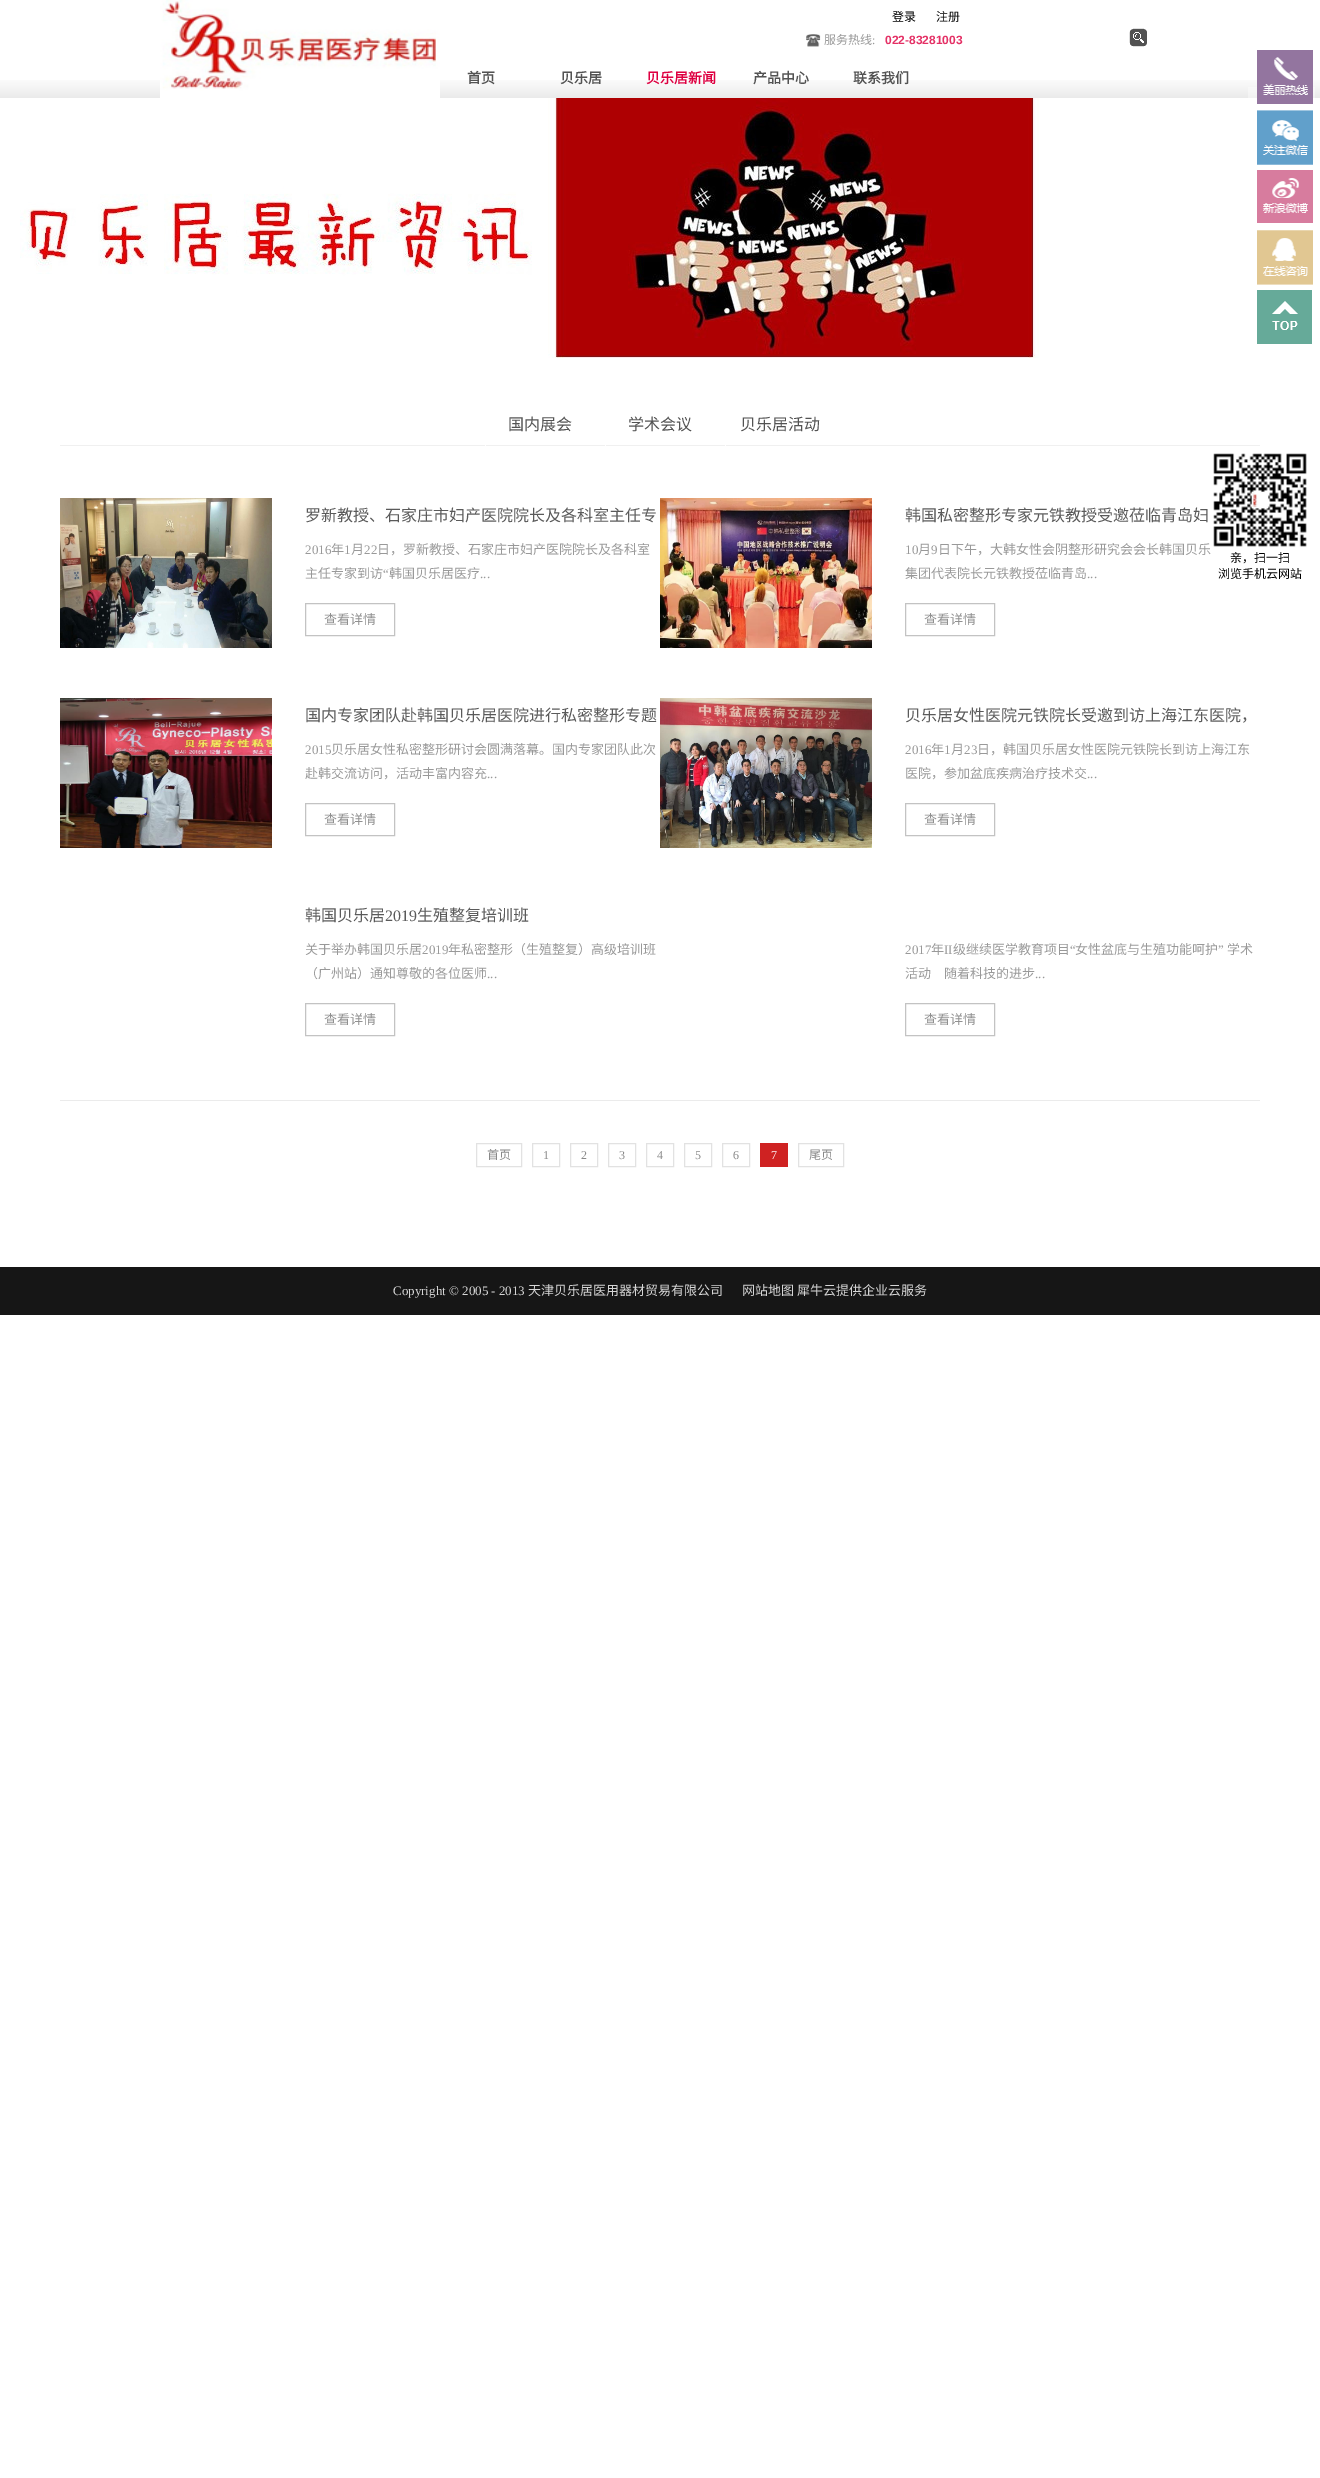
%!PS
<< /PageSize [1320 2478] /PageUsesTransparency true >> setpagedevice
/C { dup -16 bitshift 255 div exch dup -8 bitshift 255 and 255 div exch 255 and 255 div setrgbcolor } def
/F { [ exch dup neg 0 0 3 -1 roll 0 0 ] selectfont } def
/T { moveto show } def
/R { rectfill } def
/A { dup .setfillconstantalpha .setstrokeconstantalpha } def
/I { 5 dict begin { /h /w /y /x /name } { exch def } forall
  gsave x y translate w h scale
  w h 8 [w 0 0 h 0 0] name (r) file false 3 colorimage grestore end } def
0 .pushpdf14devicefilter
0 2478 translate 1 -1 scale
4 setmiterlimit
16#FFFFFF C
0 0 1320 2478 R
(1.rgb) 0 80 1320 18 I
(2.rgb) 160 0 280 98 I
/NotoSansCJKSC-Regular 12 F
16#000000 C
(登录) 892 21 T
(注册) 936 21 T
(3.rgb) 806 34 15 13 I
16#999999 C
(服务热线) 824 44 T
/LiberationSerif-Regular 12 F
(:) 872 44 T
/LiberationSans-Bold 12 F
16#E43065 C
(022-83281003) 885 44 T
(4.rgb) 1129 28 18 19 I
/NotoSansCJKSC-Bold 14 F
16#535353 C
(首页) 467 83 T
(贝乐居) 560 83 T
16#DE0041 C
(贝乐居新闻) 646 83 T
16#535353 C
(产品中心) 753 83 T
(联系我们) 853 83 T
0.37 A
16#FFFFFF C
1248 87 67 11 R
1 A
(5.rgb) 1257 50 56 54 I
(6.rgb) 1257 110 56 55 I
(7.rgb) 1257 170 56 53 I
(8.rgb) 1257 230 56 55 I
(9.rgb) 1257 290 55 54 I
(10.rgb) 20 98 1019 260 I
16#F0F0F0 C
60 445 1200 1 R
16#FFFFFF C
594 445 1 1 R
16#F0F0F0 C
594 445 1 1 R
16#FFFFFF C
485 445 1 1 R
/NotoSansCJKSC-Regular 16 F
16#535353 C
(国内展会) 508 430 T
16#FFFFFF C
714 445 1 1 R
16#F0F0F0 C
714 445 1 1 R
16#FFFFFF C
605 445 1 1 R
16#535353 C
(学术会议) 628 430 T
16#FFFFFF C
834 445 1 1 R
16#F0F0F0 C
834 445 1 1 R
16#FFFFFF C
725 445 1 1 R
16#535353 C
(贝乐居活动) 740 430 T
16#EBEBEB C
60 1100 1200 1 R
(11.rgb) 60 498 212 150 I
16#5A5A5A C
(罗新教授、石家庄市妇产医院院长及各科室主任专) 305 521 T
/LiberationSerif-Regular 13 F
16#999999 C
(2016) 305 554 T
/NotoSansCJKSC-Regular 13 F
(年) 331 554 T
/LiberationSerif-Regular 13 F
(1) 344 554 T
/NotoSansCJKSC-Regular 13 F
(月) 351 554 T
/LiberationSerif-Regular 13 F
(22) 364 554 T
/NotoSansCJKSC-Regular 13 F
(日，罗新教授、石家庄市妇产医院院长及各科室) 377 554 T
(主任专家到访) 305 578 T
/LiberationSerif-Regular 13 F
(“) 383 578 T
/NotoSansCJKSC-Regular 13 F
(韩国贝乐居医疗) 389 578 T
/LiberationSerif-Regular 13 F
(...) 480 578 T
16#C3C3C3 C
305.5 603.5 89 32 rectstroke
/NotoSansCJKSC-Regular 13 F
16#909090 C
(查看详情) 324 624 T
(12.rgb) 660 498 212 150 I
/NotoSansCJKSC-Regular 16 F
16#5A5A5A C
(韩国私密整形专家元铁教授受邀莅临青岛妇) 905 521 T
/LiberationSerif-Regular 13 F
16#999999 C
(10) 905 554 T
/NotoSansCJKSC-Regular 13 F
(月) 918 554 T
/LiberationSerif-Regular 13 F
(9) 931 554 T
/NotoSansCJKSC-Regular 13 F
(日下午，大韩女性会阴整形研究会会长韩国贝乐) 938 554 T
(集团代表院长元铁教授莅临青岛) 905 578 T
/LiberationSerif-Regular 13 F
(...) 1087 578 T
16#C3C3C3 C
905.5 603.5 89 32 rectstroke
/NotoSansCJKSC-Regular 13 F
16#909090 C
(查看详情) 924 624 T
(13.rgb) 60 698 212 150 I
/NotoSansCJKSC-Regular 16 F
16#5A5A5A C
(国内专家团队赴韩国贝乐居医院进行私密整形专题) 305 721 T
/LiberationSerif-Regular 13 F
16#999999 C
(2015) 305 754 T
/NotoSansCJKSC-Regular 13 F
(贝乐居女性私密整形研讨会圆满落幕。国内专家团队此次) 331 754 T
(赴韩交流访问，活动丰富内容充) 305 778 T
/LiberationSerif-Regular 13 F
(...) 487 778 T
16#C3C3C3 C
305.5 803.5 89 32 rectstroke
/NotoSansCJKSC-Regular 13 F
16#909090 C
(查看详情) 324 824 T
(14.rgb) 660 698 212 150 I
/NotoSansCJKSC-Regular 16 F
16#5A5A5A C
(贝乐居女性医院元铁院长受邀到访上海江东医院，) 905 721 T
/LiberationSerif-Regular 13 F
16#999999 C
(2016) 905 754 T
/NotoSansCJKSC-Regular 13 F
(年) 931 754 T
/LiberationSerif-Regular 13 F
(1) 944 754 T
/NotoSansCJKSC-Regular 13 F
(月) 951 754 T
/LiberationSerif-Regular 13 F
(23) 964 754 T
/NotoSansCJKSC-Regular 13 F
(日，韩国贝乐居女性医院元铁院长到访上海江东) 977 754 T
(医院，参加盆底疾病治疗技术交) 905 778 T
/LiberationSerif-Regular 13 F
(...) 1087 778 T
16#C3C3C3 C
905.5 803.5 89 32 rectstroke
/NotoSansCJKSC-Regular 13 F
16#909090 C
(查看详情) 924 824 T
/NotoSansCJKSC-Regular 16 F
16#5A5A5A C
(韩国贝乐居) 305 921 T
/LiberationSerif-Regular 16 F
(2019) 385 921 T
/NotoSansCJKSC-Regular 16 F
(生殖整复培训班) 417 921 T
/NotoSansCJKSC-Regular 13 F
16#999999 C
(关于举办韩国贝乐居) 305 954 T
/LiberationSerif-Regular 13 F
(2019) 422 954 T
/NotoSansCJKSC-Regular 13 F
(年私密整形（生殖整复）高级培训班) 448 954 T
(（广州站）通知尊敬的各位医师) 305 978 T
/LiberationSerif-Regular 13 F
(...) 487 978 T
16#C3C3C3 C
305.5 1003.5 89 32 rectstroke
/NotoSansCJKSC-Regular 13 F
16#909090 C
(查看详情) 324 1024 T
/LiberationSerif-Regular 13 F
16#999999 C
(2017) 905 954 T
/NotoSansCJKSC-Regular 13 F
(年) 931 954 T
/LiberationSerif-Regular 13 F
(II) 944 954 T
/NotoSansCJKSC-Regular 13 F
(级继续医学教育项目) 953 954 T
/LiberationSerif-Regular 13 F
(“) 1070 954 T
/NotoSansCJKSC-Regular 13 F
(女性盆底与生殖功能呵护) 1075 954 T
/LiberationSerif-Regular 13 F
(”) 1218 954 T
/NotoSansCJKSC-Regular 13 F
(学术) 1227 954 T
(活动) 905 978 T
(随着科技的进步) 944 978 T
/LiberationSerif-Regular 13 F
(...) 1035 978 T
16#C3C3C3 C
905.5 1003.5 89 32 rectstroke
/NotoSansCJKSC-Regular 13 F
16#909090 C
(查看详情) 924 1024 T
16#E2E2E2 C
476.5 1143.5 45 23 rectstroke
/NotoSansCJKSC-Regular 12 F
16#898989 C
(首页) 487 1159 T
16#E2E2E2 C
532.5 1143.5 27 23 rectstroke
/LiberationSerif-Regular 12 F
16#898989 C
(1) 543 1159 T
16#E2E2E2 C
570.5 1143.5 27 23 rectstroke
16#898989 C
(2) 581 1159 T
16#E2E2E2 C
608.5 1143.5 27 23 rectstroke
16#898989 C
(3) 619 1159 T
16#E2E2E2 C
646.5 1143.5 27 23 rectstroke
16#898989 C
(4) 657 1159 T
16#E2E2E2 C
684.5 1143.5 27 23 rectstroke
16#898989 C
(5) 695 1159 T
16#E2E2E2 C
722.5 1143.5 27 23 rectstroke
16#898989 C
(6) 733 1159 T
16#CF2222 C
760 1143 28 24 R
16#FFFFFF C
(7) 771 1159 T
16#E2E2E2 C
798.5 1143.5 45 23 rectstroke
/NotoSansCJKSC-Regular 12 F
16#898989 C
(尾页) 809 1159 T
(15.rgb) 1210 453 97 97 I
16#000000 C
(亲，扫一扫) 1230 562 T
(浏览手机云网站) 1218 578 T
16#161616 C
0 1267 1320 48 R
/LiberationSerif-Regular 13 F
16#D5D5D5 C
(Copyright © 2005 - 2013) 393 1295 T
/NotoSansCJKSC-Regular 13 F
(天津贝乐居医用器材贸易有限公司) 528 1295 T
(网站地图) 742 1295 T
(犀牛云提供企业云服务) 797 1295 T
.poppdf14devicefilter showpage
